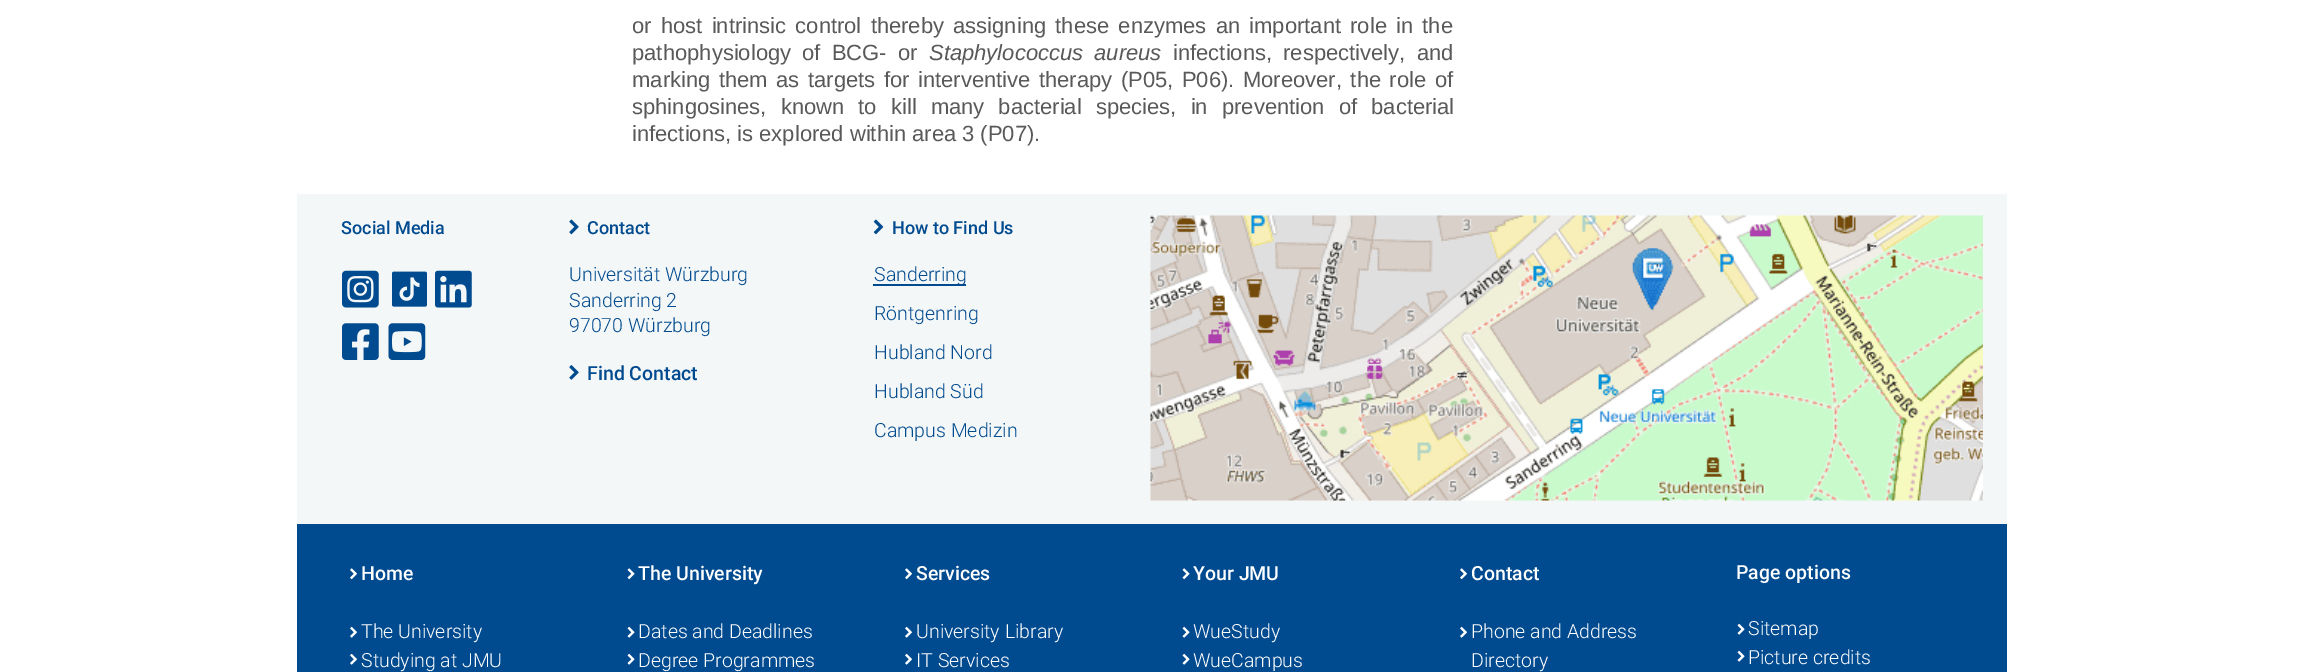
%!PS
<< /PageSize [2302 672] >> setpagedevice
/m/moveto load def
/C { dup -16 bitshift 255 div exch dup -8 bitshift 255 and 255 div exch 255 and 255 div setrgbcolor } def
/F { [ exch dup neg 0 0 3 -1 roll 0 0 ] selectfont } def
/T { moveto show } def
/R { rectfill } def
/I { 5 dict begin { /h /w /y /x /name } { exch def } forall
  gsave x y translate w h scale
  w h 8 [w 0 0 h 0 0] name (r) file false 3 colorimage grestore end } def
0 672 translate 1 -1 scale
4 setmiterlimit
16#FFFFFF C
0 0 2302 672 R
/LiberationSans-Regular 22 F
16#595959 C
632 33 m 3.1 0 32 (or host intrinsic control thereby assigning these enzymes an important role in the) widthshow
632 60 m 5 0 32 (pathophysiology of BCG- or) widthshow
/LiberationSans-Italic 22 F
929 60 m 5 0 32 (Staphylococcus aureus) widthshow
/LiberationSans-Regular 22 F
1173 60 m 5 0 32 (infections, respectively, and) widthshow
632 87 m 2.4 0 32 (marking them as targets for interventive therapy \(P05, P06\). Moreover, the role of) widthshow
632 114 m 8 0 32 (sphingosines, known to kill many bacterial species, in prevention of bacterial) widthshow
(infections, is explored within area 3 \(P07\).) 632 141 T
16#F4F7F7 C
297 194 1710 330 R
/Roboto-Medium 18 F
16#004A8F C
(Social Media) 341 234 T
(1.rgb) 342 270 37 38 I
(2.rgb) 392 271 35 36 I
(3.rgb) 435 270 37 38 I
(4.rgb) 342 323 37 37 I
(5.rgb) 388 323 38 37 I
(6.rgb) 569 219 10 16 I
(Contact) 587 234 T
/Roboto-Light 19.5 F
(Universität Würzburg) 569 281 T
(Sanderring 2) 569 307 T
(97070 Würzburg) 569 332 T
(7.rgb) 569 365 10 15 I
/Roboto-Medium 19.5 F
(Find Contact) 587 380 T
(8.rgb) 873 219 11 16 I
/Roboto-Medium 18 F
(How to Find Us) 892 234 T
873 284 93 2 R
/Roboto-Light 19.5 F
(Sanderring) 874 281 T
(Röntgenring) 874 320 T
(Hubland Nord) 874 359 T
(Hubland Süd) 874 398 T
(Campus Medizin) 874 437 T
(9.rgb) 1150 215 833 286 I
297 524 1710 148 R
(10.rgb) 350 568 7 12 I
/Roboto-Medium 19.5 F
16#FFFFFF C
(Home) 361 580 T
(11.rgb) 350 626 7 12 I
/Roboto-Light 19.5 F
(The University) 361 638 T
(11.rgb) 350 653 7 12 I
(Studying at JMU) 361 667 T
(12.rgb) 627 568 8 12 I
/Roboto-Medium 19.5 F
(The University) 638 580 T
(13.rgb) 627 626 8 12 I
/Roboto-Light 19.5 F
(Dates and Deadlines) 638 638 T
(13.rgb) 627 653 8 12 I
(Degree Programmes) 638 667 T
(10.rgb) 905 568 7 12 I
/Roboto-Medium 19.5 F
(Services) 916 580 T
(11.rgb) 905 626 7 12 I
/Roboto-Light 19.5 F
(University Library) 916 638 T
(11.rgb) 905 653 7 12 I
(IT Services) 916 667 T
(12.rgb) 1182 568 8 12 I
/Roboto-Medium 19.5 F
(Your JMU) 1193 580 T
(13.rgb) 1182 626 8 12 I
/Roboto-Light 19.5 F
(WueStudy) 1193 638 T
(13.rgb) 1182 653 8 12 I
(WueCampus) 1193 667 T
(10.rgb) 1460 568 7 12 I
/Roboto-Medium 19.5 F
(Contact) 1471 580 T
(11.rgb) 1460 626 7 12 I
/Roboto-Light 19.5 F
(Phone and Address) 1471 638 T
(Directory) 1471 667 T
/Roboto-Medium 19.5 F
(Page options) 1736 579 T
(13.rgb) 1737 623 8 12 I
/Roboto-Light 19.5 F
(Sitemap) 1748 635 T
(13.rgb) 1737 650 8 12 I
(Picture credits) 1748 664 T
showpage
